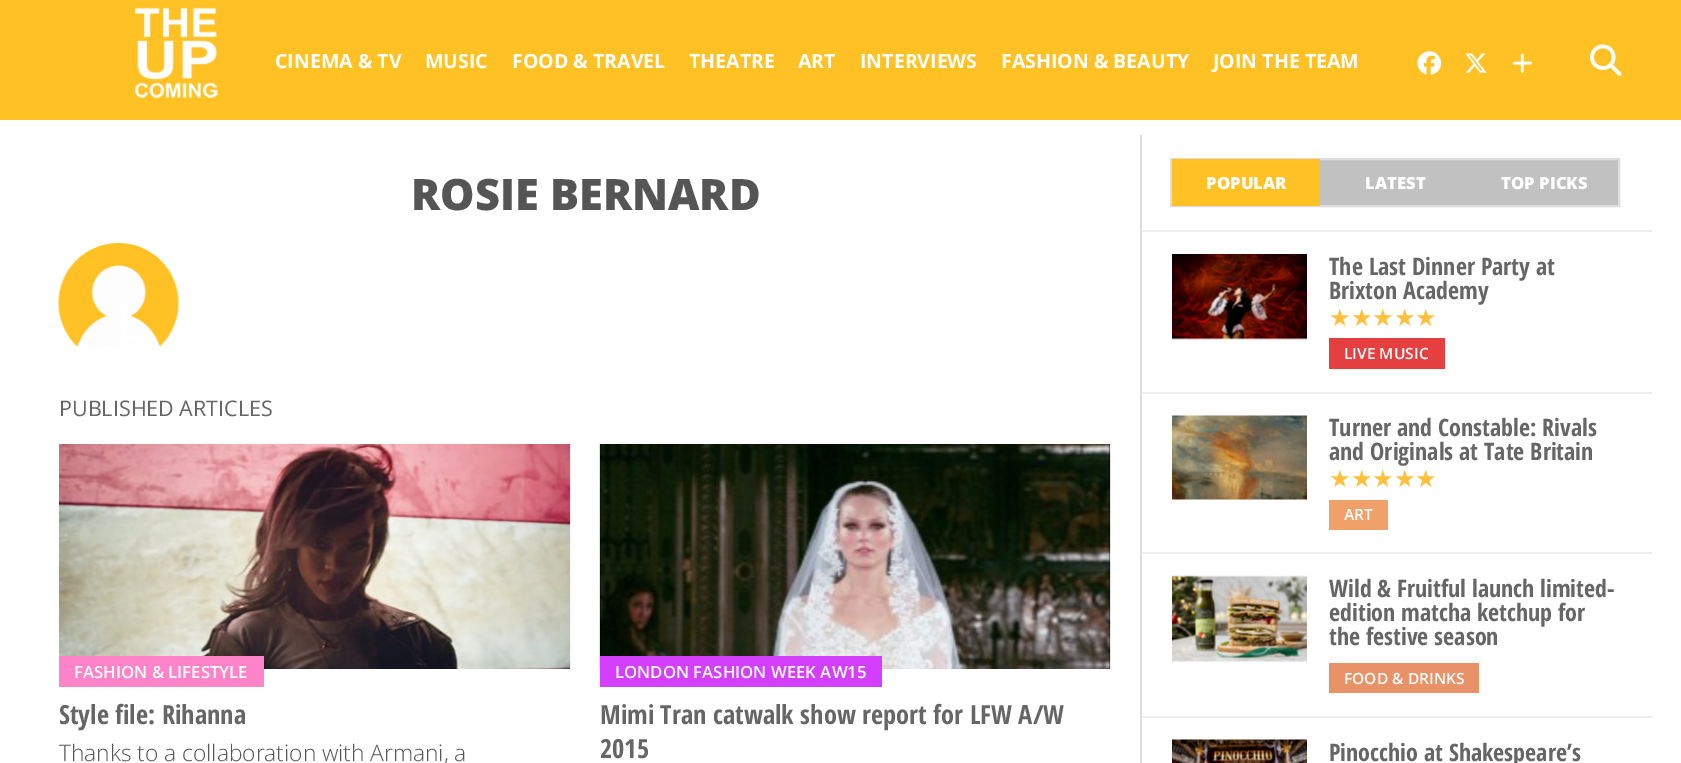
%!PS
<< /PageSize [1681 763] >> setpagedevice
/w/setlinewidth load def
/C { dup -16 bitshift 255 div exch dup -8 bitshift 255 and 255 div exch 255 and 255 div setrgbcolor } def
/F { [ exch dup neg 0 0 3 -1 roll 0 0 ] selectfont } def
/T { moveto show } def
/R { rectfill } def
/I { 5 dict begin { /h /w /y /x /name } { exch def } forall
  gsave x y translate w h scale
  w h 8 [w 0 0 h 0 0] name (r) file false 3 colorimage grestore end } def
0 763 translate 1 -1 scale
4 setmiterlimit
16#FFFFFF C
0 0 1681 763 R
16#FFC124 C
0 0 1681 120 R
(1.rgb) 134 7 84 91 I
/OpenSans-Bold 19.5 F
16#FFFFFF C
(CINEMA & TV) 275 68 T
(MUSIC) 425 68 T
(FOOD & TRAVEL) 512 68 T
(THEATRE) 689 68 T
(ART) 798 68 T
(INTERVIEWS) 860 68 T
(FASHION & BEAUTY) 1001 68 T
(JOIN THE TEAM) 1213 68 T
(2.rgb) 1417 51 25 24 I
(3.rgb) 1465 53 22 20 I
(4.rgb) 1512 53 20 20 I
(5.rgb) 1590 44 32 32 I
/OpenSans-ExtraBold 43.25 F
16#555555 C
(ROSIE BERNARD) 411 210 T
(6.rgb) 58 243 121 104 I
/OpenSans-Regular 21.5 F
16#666666 C
(PUBLISHED ARTICLES) 59 416 T
(7.rgb) 59 444 512 225 I
16#FF83C9 C
59 656 205 31 R
/OpenSans-SemiBold 16.75 F
16#FFFFFF C
(FASHION & LIFESTYLE) 74 678 T
/OpenSansCondensed-Bold 26.4 F
16#666666 C
(Style file: Rihanna) 59 724 T
/OpenSans-Light 22.75 F
16#555555 C
(Thanks to a collaboration with Armani, a) 59 761 T
16#000000 C
600 444 510 225 R
(8.rgb) 599 444 512 225 I
16#D43EFF C
600 656 282 31 R
/OpenSans-SemiBold 16.75 F
16#FFFFFF C
(LONDON FASHION WEEK AW15) 615 678 T
/OpenSansCondensed-Bold 26.4 F
16#666666 C
(Mimi Tran catwalk show report for LFW A/W) 600 724 T
(2015) 600 758 T
16#DDDDDD C
1140 135 2 628 R
16#C1C1C1 C
1320 160 298 45 R
16#DDDDDD C
2 w
1171 159 448 47 rectstroke
16#FFC124 C
1172 159 148 47 R
/OpenSans-ExtraBold 16.75 F
16#FFFFFF C
(POPULAR) 1206 189 T
(LATEST) 1365 189 T
(TOP PICKS) 1501 189 T
16#EEEEEE C
1142 230 510 2 R
(9.rgb) 1172 254 135 86 I
/OpenSansCondensed-Bold 24 F
16#666666 C
(The Last Dinner Party at) 1329 275 T
(Brixton Academy) 1329 299 T
/DejaVuSans-Regular 24 F
16#FFC03D C
(★★★★★) 1329 326 T
16#E63F3F C
1329 338 116 31 R
/OpenSans-SemiBold 15.5 F
16#FFFFFF C
(LIVE MUSIC) 1344 359 T
16#EEEEEE C
1142 392 510 2 R
(10.rgb) 1172 415 135 85 I
/OpenSansCondensed-Bold 24 F
16#666666 C
(Turner and Constable: Rivals) 1329 436 T
(and Originals at Tate Britain) 1329 460 T
/DejaVuSans-Regular 24 F
16#FFC03D C
(★★★★★) 1329 487 T
16#EFA169 C
1329 500 59 30 R
/OpenSans-SemiBold 15.5 F
16#FFFFFF C
(ART) 1344 520 T
16#EEEEEE C
1142 552 510 2 R
(11.rgb) 1172 575 135 87 I
/OpenSansCondensed-Bold 24 F
16#666666 C
(Wild & Fruitful launch limited-) 1329 597 T
(edition matcha ketchup for) 1329 621 T
(the festive season) 1329 645 T
16#E99268 C
1329 663 150 30 R
/OpenSans-SemiBold 15.5 F
16#FFFFFF C
(FOOD & DRINKS) 1344 684 T
16#EEEEEE C
1142 716 510 2 R
(12.rgb) 1172 739 135 24 I
/OpenSansCondensed-Bold 24 F
16#666666 C
(Pinocchio at Shakespeare’s) 1329 761 T
showpage
